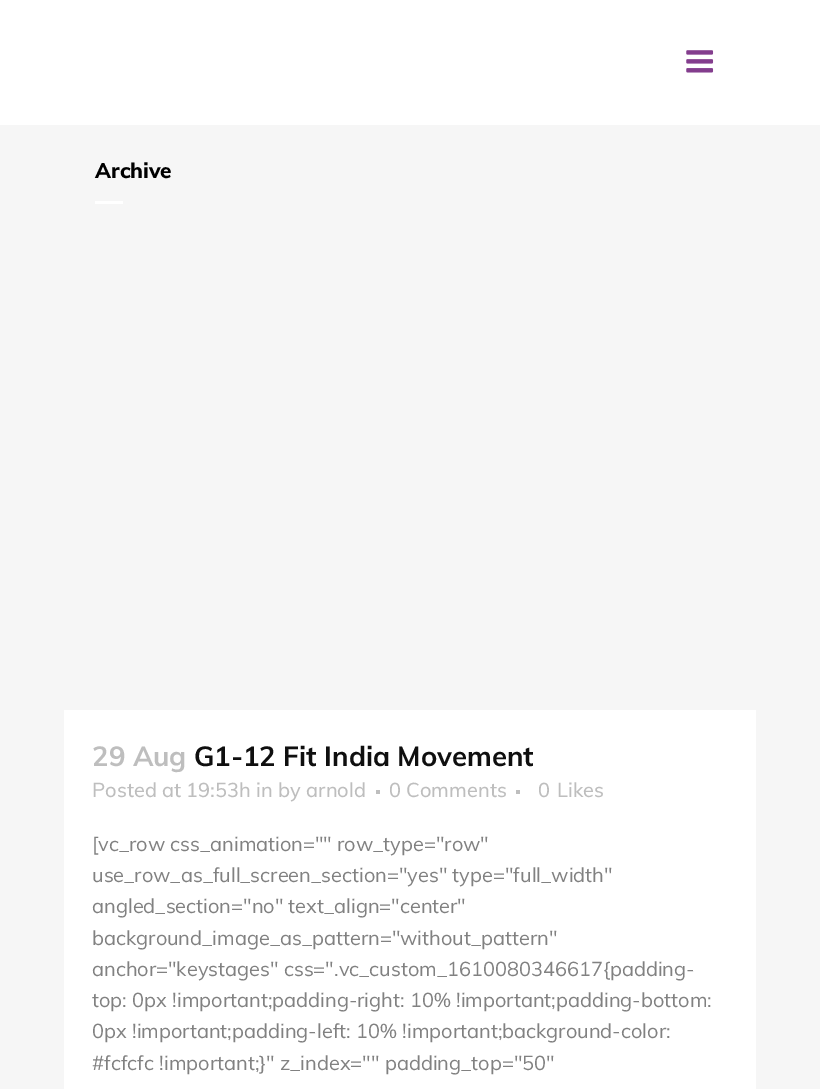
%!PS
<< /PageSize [820 1089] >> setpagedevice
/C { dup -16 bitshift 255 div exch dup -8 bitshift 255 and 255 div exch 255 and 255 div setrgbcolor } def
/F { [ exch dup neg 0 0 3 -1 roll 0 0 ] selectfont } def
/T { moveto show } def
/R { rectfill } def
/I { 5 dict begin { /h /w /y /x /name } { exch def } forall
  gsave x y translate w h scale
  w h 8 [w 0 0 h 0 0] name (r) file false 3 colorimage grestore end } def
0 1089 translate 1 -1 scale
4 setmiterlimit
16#F6F6F6 C
0 0 820 1089 R
16#FFFFFF C
0 0 820 125 R
(1.rgb) 686 50 28 23 I
/Muli-ExtraBold 21 F
16#000000 C
(Archive) 95 178 T
16#FFFFFF C
95 201 28 3 R
64 710 692 379 R
/Muli-Bold 27.5 F
16#BEBEBE C
(29 Aug) 92 766 T
16#0F0F0F C
(G1-12 Fit India Movement) 194 766 T
/Muli-Medium 20 F
16#BEBEBE C
(Posted at 19:53h in by arnold) 92 797 T
376 790 4 4 R
(0 Comments) 389 797 T
516 790 4 4 R
(0) 538 797 T
(Likes) 557 797 T
/Muli-Regular 20 F
16#818181 C
([vc_row css_animation="" row_type="row") 92 851 T
(use_row_as_full_screen_section="yes" type="full_width") 92 882 T
(angled_section="no" text_align="center") 92 913 T
(background_image_as_pattern="without_pattern") 92 945 T
(anchor="keystages" css=".vc_custom_1610080346617{padding-) 92 976 T
(top: 0px !important;padding-right: 10% !important;padding-bottom:) 92 1007 T
(0px !important;padding-left: 10% !important;background-color:) 92 1038 T
(#fcfcfc !important;}" z_index="" padding_top="50") 92 1070 T
showpage
